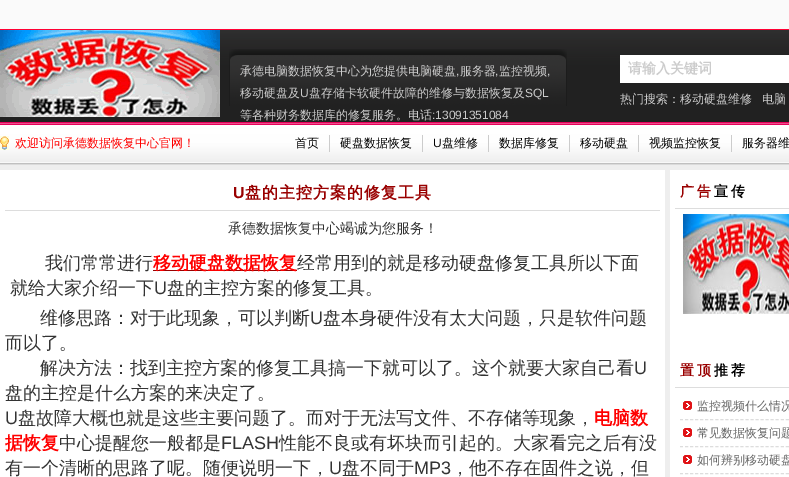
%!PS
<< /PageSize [789 477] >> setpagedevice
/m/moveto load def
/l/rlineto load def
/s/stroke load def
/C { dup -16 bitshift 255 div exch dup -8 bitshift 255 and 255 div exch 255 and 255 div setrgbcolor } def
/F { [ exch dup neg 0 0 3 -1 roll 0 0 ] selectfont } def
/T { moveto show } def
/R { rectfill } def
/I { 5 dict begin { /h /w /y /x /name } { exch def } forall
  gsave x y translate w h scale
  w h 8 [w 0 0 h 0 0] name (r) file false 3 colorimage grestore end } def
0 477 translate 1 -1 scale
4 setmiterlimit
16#EEEEEE C
0 0 789 477 R
16#FAFAFA C
0 0 789 29 R
16#FF0033 C
0 29 789 1 R
(1.rgb) 0 30 789 135 I
(2.rgb) 0 30 220 87 I
(3.rgb) 229 49 338 57 I
/WenQuanYiZenHei-Medium 12 F
16#CCCCCC C
(承德电脑数据恢复中心为您提供电脑硬盘 服务器 监控视频) 240 75 T
/LiberationSans-Regular 12 F
(,) 456 75 T
(,) 495 75 T
(,) 547 75 T
/WenQuanYiZenHei-Medium 12 F
(移动硬盘及) 240 97 T
/LiberationSans-Regular 12 F
(U) 300 97 T
/WenQuanYiZenHei-Medium 12 F
(盘存储卡软硬件故障的维修与数据恢复及) 309 97 T
/LiberationSans-Regular 12 F
(SQL) 525 97 T
/WenQuanYiZenHei-Medium 12 F
(等各种财务数据库的修复服务。电话) 240 119 T
/LiberationSans-Regular 12 F
(:13091351084) 432 119 T
16#FFFFFF C
620 55 169 28 R
/WenQuanYiZenHei-Bold 14 F
16#CCCCCC C
(请输入关键词) 628 73 T
/WenQuanYiZenHei-Medium 12 F
(热门搜索：移动硬盘维修) 620 103 T
(电脑) 762 103 T
(4.rgb) 0 136 9 14 I
16#FF0000 C
(欢迎访问承德数据恢复中心官网！) 15 147 T
16#000000 C
(首页) 295 147 T
16#CCCCCC C
329 135 1 17 R
16#000000 C
(硬盘数据恢复) 340 147 T
16#CCCCCC C
422 135 1 17 R
/LiberationSans-Regular 12 F
16#000000 C
(U) 433 147 T
/WenQuanYiZenHei-Medium 12 F
(盘维修) 442 147 T
16#CCCCCC C
488 135 1 17 R
16#000000 C
(数据库修复) 499 147 T
16#CCCCCC C
569 135 1 17 R
16#000000 C
(移动硬盘) 580 147 T
16#CCCCCC C
638 135 1 17 R
16#000000 C
(视频监控恢复) 649 147 T
16#CCCCCC C
731 135 1 17 R
16#000000 C
(服务器维) 742 147 T
16#FFFFFF C
0 170 665 307 R
16#DDDDDD C
5 210 655 1 R
/LiberationSans-Bold 16 F
16#990000 C
233 198 m 1 0 (U) ashow
/WenQuanYiZenHei-Bold 16 F
245 198 m 1 0 (盘的主控方案的修复工具) ashow
/WenQuanYiZenHei-Medium 14 F
16#333333 C
(承德数据恢复中心竭诚为您服务！) 228 233 T
/WenQuanYiZenHei-Medium 18 F
(我们常常进行) 45 269 T
16#990000 C
153 270 144 1 R
/WenQuanYiZenHei-Bold 18 F
16#FF0000 C
(移动硬盘数据恢复) 153 269 T
/WenQuanYiZenHei-Medium 18 F
16#333333 C
(经常用到的就是移动硬盘修复工具所以下面) 297 269 T
(就给大家介绍一下) 10 294 T
/LiberationSans-Regular 18 F
(U) 154 294 T
/WenQuanYiZenHei-Medium 18 F
(盘的主控方案的修复工具。) 167 294 T
(维修思路：对于此现象，可以判断) 40 324 T
/LiberationSans-Regular 18 F
(U) 310 324 T
/WenQuanYiZenHei-Medium 18 F
(盘本身硬件没有太大问题，只是软件问题) 323 324 T
(而以了。) 5 349 T
(解决方法：找到主控方案的修复工具搞一下就可以了。这个就要大家自己看) 40 374 T
/LiberationSans-Regular 18 F
(U) 634 374 T
/WenQuanYiZenHei-Medium 18 F
(盘的主控是什么方案的来决定了。) 5 399 T
/LiberationSans-Regular 18 F
(U) 5 424 T
/WenQuanYiZenHei-Medium 18 F
(盘故障大概也就是这些主要问题了。而对于无法写文件、不存储等现象，) 18 424 T
/WenQuanYiZenHei-Bold 18 F
16#FF0000 C
(电脑数) 594 424 T
(据恢复) 5 449 T
/WenQuanYiZenHei-Medium 18 F
16#333333 C
(中心提醒您一般都是) 59 449 T
/LiberationSans-Regular 18 F
(FLASH) 221 449 T
/WenQuanYiZenHei-Medium 18 F
(性能不良或有坏块而引起的。大家看完之后有没) 279 449 T
(有一个清晰的思路了呢。随便说明一下，) 5 474 T
/LiberationSans-Regular 18 F
(U) 329 474 T
/WenQuanYiZenHei-Medium 18 F
(盘不同于) 342 474 T
/LiberationSans-Regular 18 F
(MP3) 414 474 T
/WenQuanYiZenHei-Medium 18 F
(，他不存在固件之说，但) 451 474 T
16#FFFFFF C
670 170 119 307 R
16#DDDDDD C
675 208 114 1 R
/WenQuanYiZenHei-Bold 14 F
16#990000 C
680 196 m 3 0 (广告) ashow
16#000000 C
714 196 m 3 0 (宣传) ashow
(5.rgb) 683 214 106 100 I
16#DDDDDD C
675 387 114 1 R
16#990000 C
680 375 m 3 0 (置顶) ashow
16#000000 C
714 375 m 3 0 (推荐) ashow
(6.rgb) 683 401 9 9 I
16#DDDDDD C
[3 2.04] 0 setdash
680 419.5 m 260 0 l s
/WenQuanYiZenHei-Medium 12 F
16#666666 C
(监控视频什么情况) 697 410 T
(6.rgb) 683 428 9 9 I
16#DDDDDD C
680 446.5 m 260 0 l s
16#666666 C
(常见数据恢复问题) 697 437 T
(6.rgb) 683 455 9 9 I
16#DDDDDD C
680 473.5 m 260 0 l s
16#666666 C
(如何辨别移动硬盘) 697 464 T
showpage
